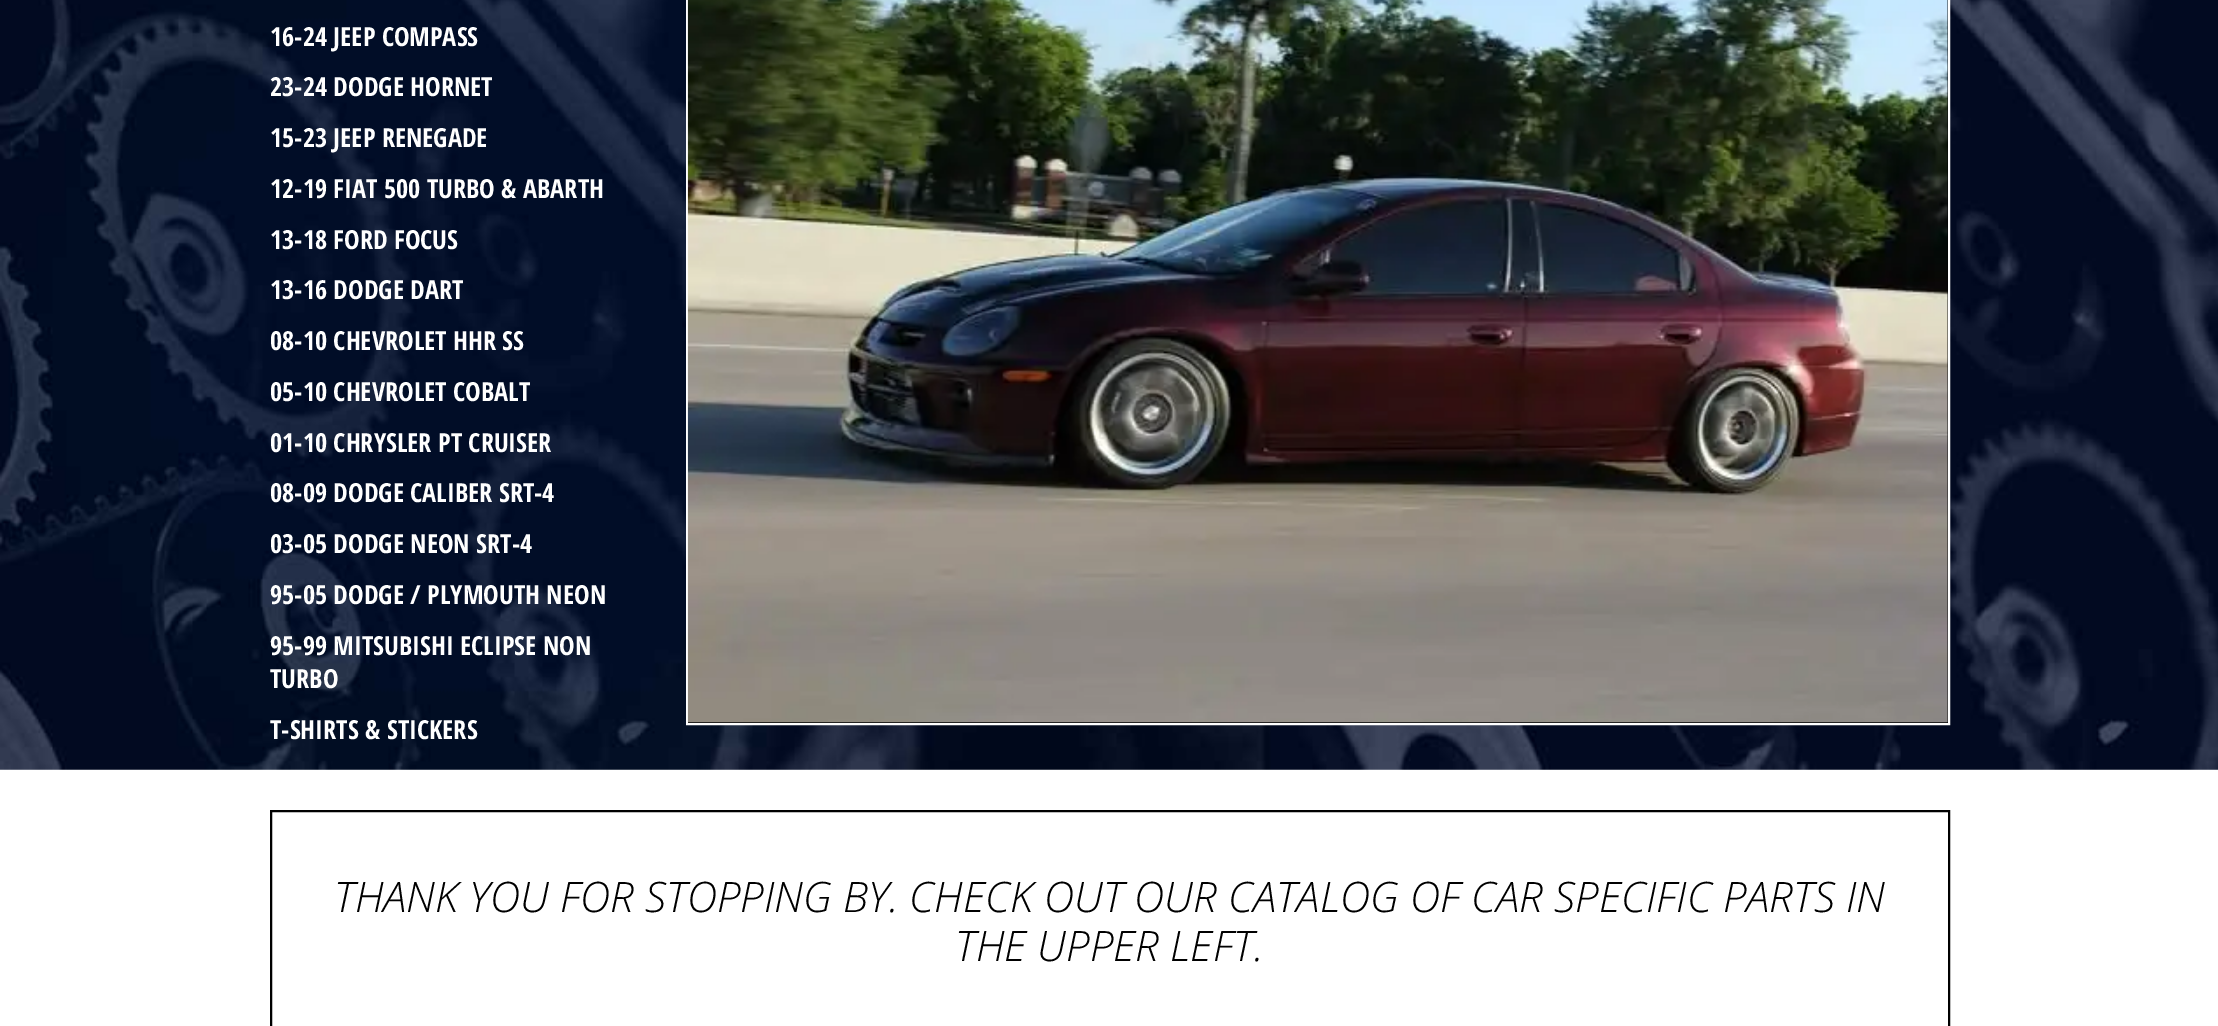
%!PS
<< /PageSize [2218 1026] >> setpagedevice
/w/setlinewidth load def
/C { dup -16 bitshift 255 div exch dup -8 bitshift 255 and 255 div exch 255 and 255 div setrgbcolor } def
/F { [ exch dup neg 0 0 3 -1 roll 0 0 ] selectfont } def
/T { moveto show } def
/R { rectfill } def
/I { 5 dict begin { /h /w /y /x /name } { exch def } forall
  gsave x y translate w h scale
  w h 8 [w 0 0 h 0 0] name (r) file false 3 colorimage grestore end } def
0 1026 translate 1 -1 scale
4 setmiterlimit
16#FFFFFF C
0 0 2218 1026 R
(1.rgb) 0 0 2218 770 I
/OpenSansCondensed-Bold 26.25 F
(16-24 JEEP COMPASS) 270 46 T
(23-24 DODGE HORNET) 270 96 T
(15-23 JEEP RENEGADE) 270 147 T
(12-19 FIAT 500 TURBO & ABARTH) 270 198 T
(13-18 FORD FOCUS) 270 249 T
(13-16 DODGE DART) 270 299 T
(08-10 CHEVROLET HHR SS) 270 350 T
(05-10 CHEVROLET COBALT) 270 401 T
(01-10 CHRYSLER PT CRUISER) 270 452 T
(08-09 DODGE CALIBER SRT-4) 270 502 T
(03-05 DODGE NEON SRT-4) 270 553 T
(95-05 DODGE / PLYMOUTH NEON) 270 604 T
(95-99 MITSUBISHI ECLIPSE NON) 270 655 T
(TURBO) 270 688 T
(T-SHIRTS & STICKERS) 270 739 T
2 w
687 -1 1262 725 rectstroke
16#000000 C
688 0 1260 723 R
(2.rgb) 687 0 1261 723 I
271 811 1678 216 rectstroke
/OpenSans-LightItalic 42 F
(THANK YOU FOR STOPPING BY. CHECK OUT OUR CATALOG OF CAR SPECIFIC PARTS IN) 334 912 T
(THE UPPER LEFT.) 955 961 T
showpage
